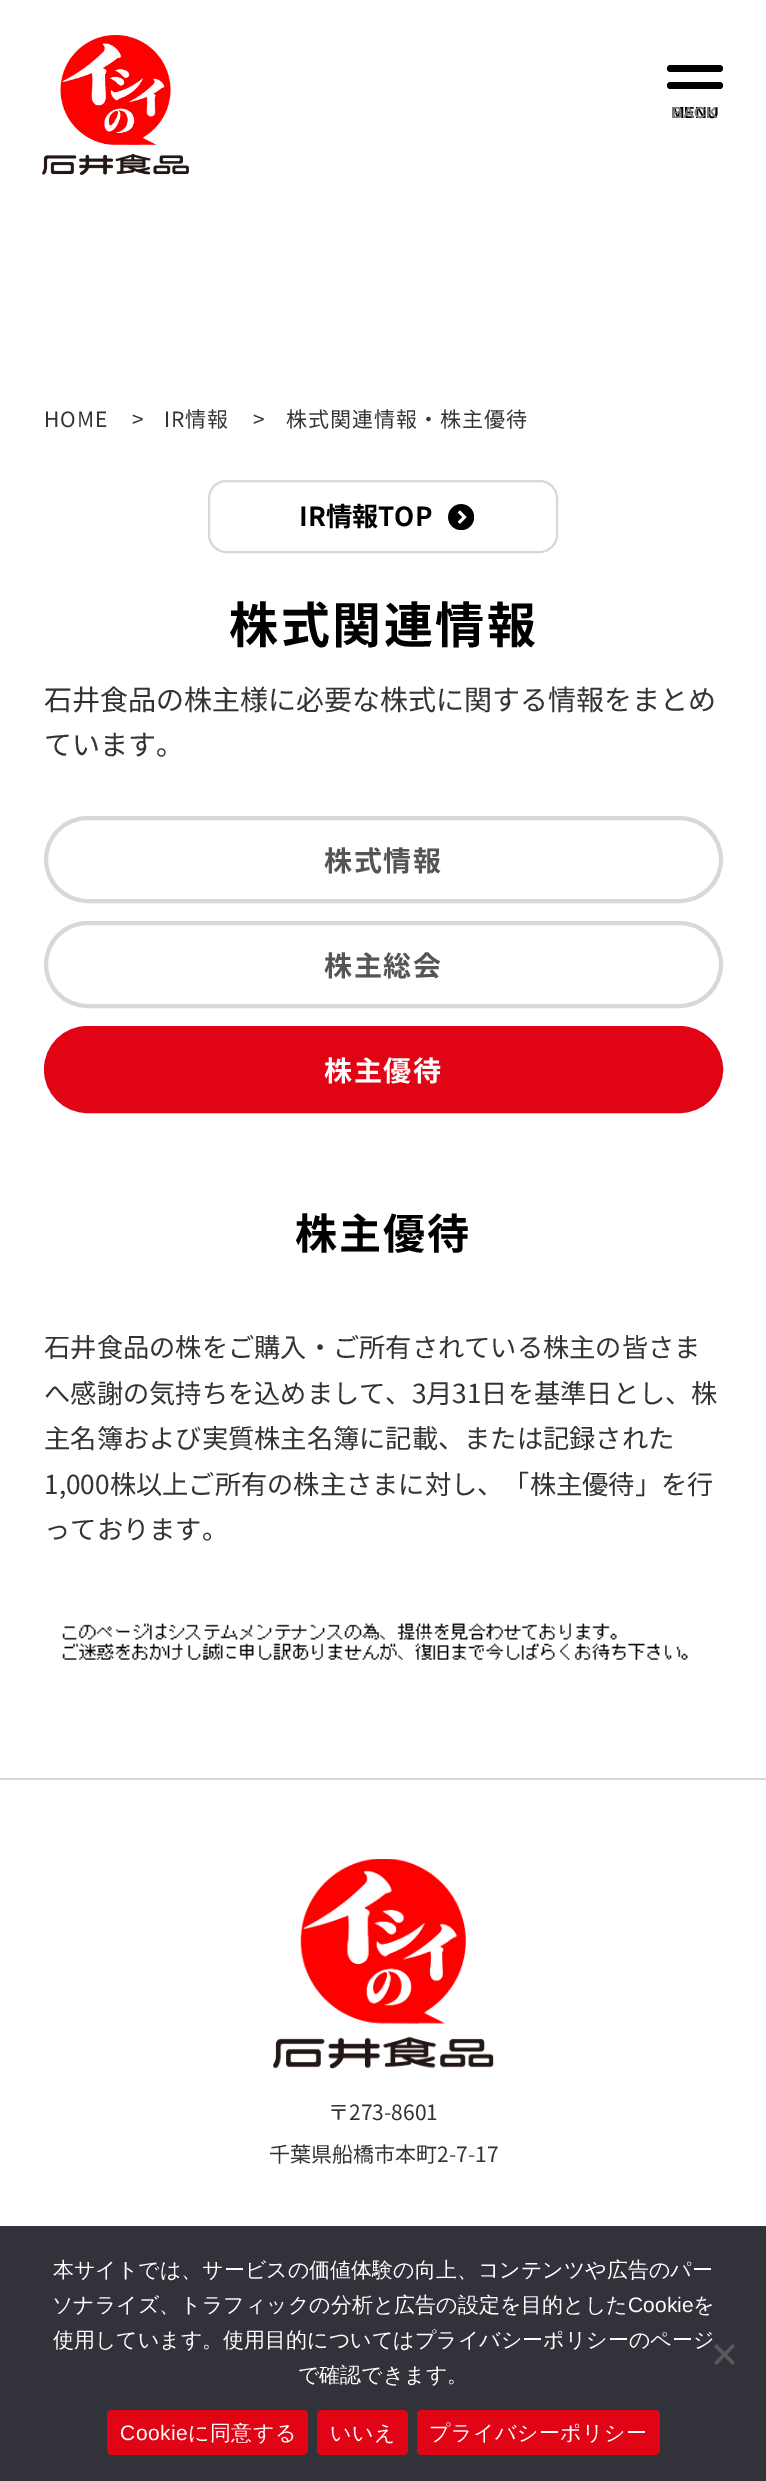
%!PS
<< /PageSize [766 2481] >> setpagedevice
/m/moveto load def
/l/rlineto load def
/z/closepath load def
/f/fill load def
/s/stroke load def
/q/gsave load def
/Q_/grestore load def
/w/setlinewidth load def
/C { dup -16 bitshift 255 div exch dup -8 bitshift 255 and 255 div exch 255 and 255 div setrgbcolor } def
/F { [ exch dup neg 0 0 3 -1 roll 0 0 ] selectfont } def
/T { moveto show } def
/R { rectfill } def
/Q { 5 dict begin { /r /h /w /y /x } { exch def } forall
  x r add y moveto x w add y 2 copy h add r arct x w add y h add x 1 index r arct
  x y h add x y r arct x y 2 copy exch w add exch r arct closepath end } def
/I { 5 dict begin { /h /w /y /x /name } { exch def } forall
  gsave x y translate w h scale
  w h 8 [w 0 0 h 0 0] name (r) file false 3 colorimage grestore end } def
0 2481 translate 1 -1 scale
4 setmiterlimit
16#FFFFFF C
0 0 766 2481 R
(1.rgb) 42 35 147 140 I
16#000000 C
667 65 56 7 3.5 Q f
667 82 56 7 3.5 Q f
/LiberationSans-Bold 16 F
(MENU) 671 118 T
16#7A7A7A C
(BACK) 671 118 T
/NotoSansJP-Regular 21 F
16#333333 C
44 427 m 1 0 (HOME) ashow
(>) 132 427 T
164 427 m 1 0 (IR情報) ashow
(>) 253 427 T
286 427 m 1 0 (株式関連情報・株主優待) ashow
16#D8D8D8 C
2 w
209 481 348 71 17 Q s
/NotoSansJP-Bold 26.25 F
16#000000 C
(IR情報TOP) 299 526 T
(2.rgb) 448 504 26 26 I
/NotoSansJP-Bold 49 F
229 643 m 2.5 0 (株式関連情報) ashow
/NotoSansJP-Regular 28 F
16#333333 C
(石井食品の株主様に必要な株式に関する情報をまとめ) 44 710 T
(ています。) 44 755 T
16#D8D8D8 C
4 w
46 818 675 83 41.5 Q s
/NotoSansJP-Bold 28 F
16#555555 C
324 871 m 1.5 0 (株式情報) ashow
16#D8D8D8 C
46 923 675 83 41.5 Q s
16#555555 C
324 976 m 1.5 0 (株主総会) ashow
16#E10415 C
46 1028 675 83 41.5 Q q f Q_
s
16#FFFFFF C
324 1081 m 1.5 0 (株主優待) ashow
/NotoSansJP-Bold 42 F
16#000000 C
295 1249 m 2 0 (株主優待) ashow
/NotoSansJP-Regular 26.25 F
16#333333 C
(石井食品の株をご購入・ご所有されている株主の皆さま) 44 1357 T
(へ感謝の気持ちを込めまして、3月31日を基準日とし、株) 44 1403 T
(主名簿および実質株主名簿に記載、または記録された) 44 1448 T
(1,000株以上ご所有の株主さまに対し、「株主優待」を行) 44 1494 T
(っております。) 44 1539 T
(3.rgb) 62 1623 626 37 I
16#D8D8D8 C
0 1778 766 2 R
(4.rgb) 273 1859 221 210 I
/NotoSansJP-Regular 21 F
16#333333 C
(〒273-8601) 328 2120 T
(千葉県船橋市本町2-7-17) 269 2162 T
16#32323A C
0 2226 766 255 R
/WenQuanYiZenHei-Medium 21 F
16#FFFFFF C
(本サイトでは、サービスの価値体験の向上、コンテンツや広告のパー) 53 2277 T
(ソナライズ、トラフィックの分析と広告の設定を目的とした) 52 2312 T
/LiberationSans-Regular 21 F
(Cookie) 628 2312 T
/WenQuanYiZenHei-Medium 21 F
(を) 693 2312 T
(使用しています。使用目的についてはプライバシーポリシーのページ) 53 2347 T
(で確認できます。) 298 2382 T
16#59595D C
732.5 2344 m 2.5 2.5 l -18.5 18.5 l -2.5 -2.5 l z f
714 2346.5 m 2.5 -2.5 l 18.5 18.5 l -2.5 2.5 l z f
16#E10415 C
107 2410 201 45 5 Q f
/LiberationSans-Regular 21 F
16#FFFFFF C
120 2440 m .5 0 (Cookie) ashow
/WenQuanYiZenHei-Medium 21 F
188 2440 m .5 0 (に同意する) ashow
16#E10415 C
317 2410 91 45 5 Q f
16#FFFFFF C
330 2440 m .5 0 (いいえ) ashow
16#E10415 C
417 2410 243 45 5 Q f
16#FFFFFF C
429 2440 m .5 0 (プライバシーポリシー) ashow
showpage
